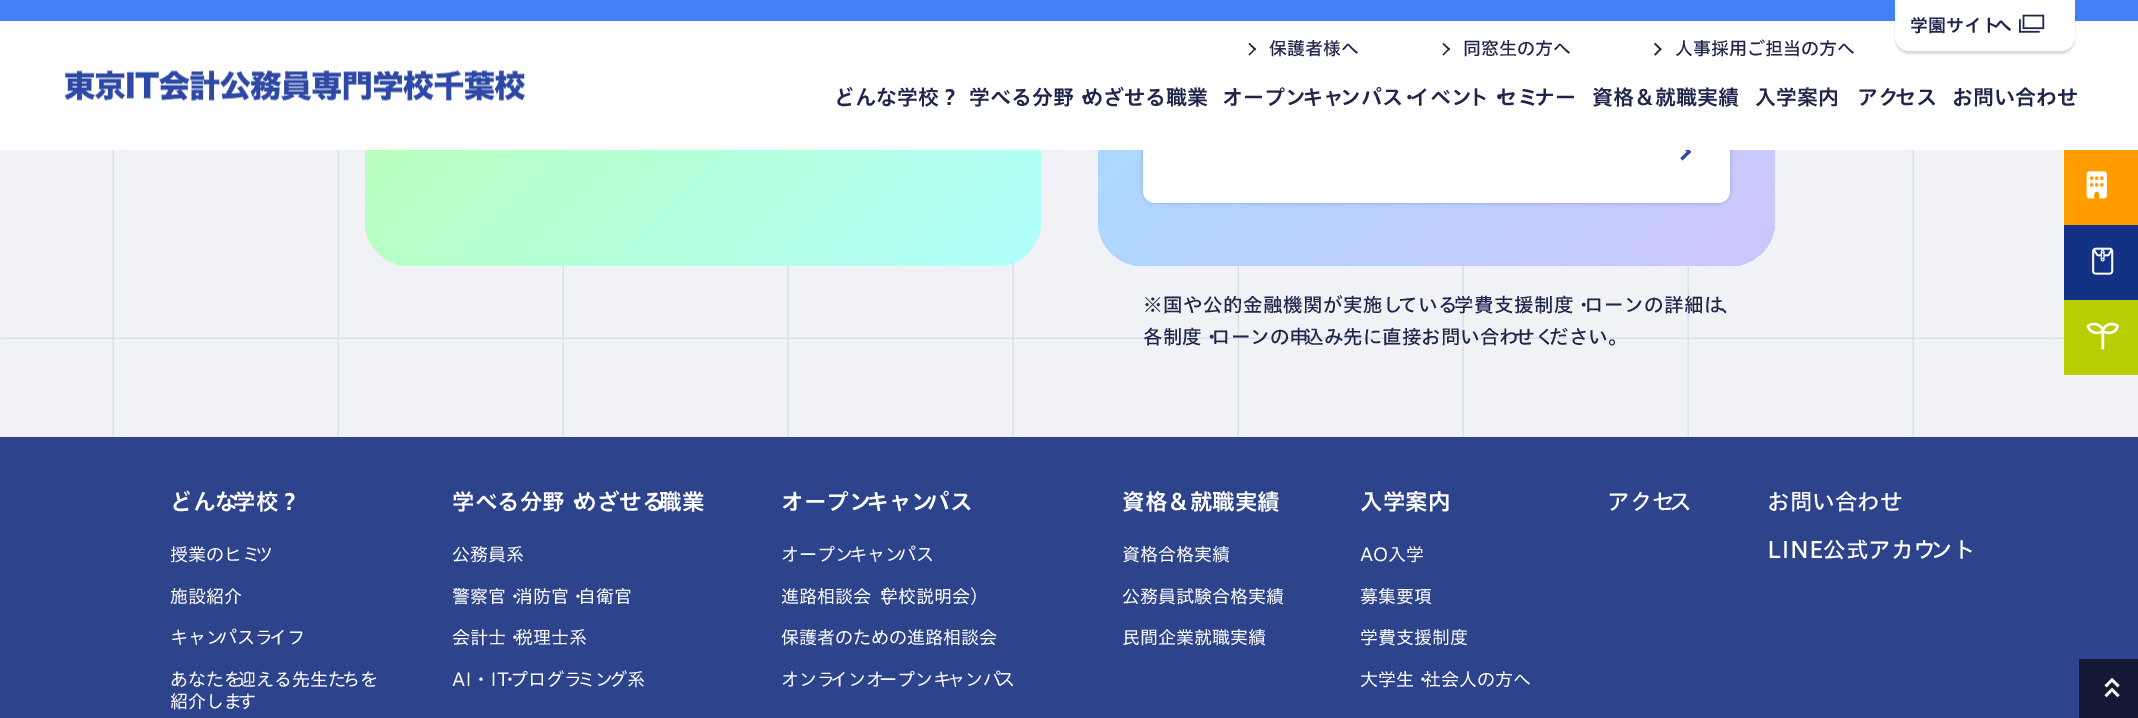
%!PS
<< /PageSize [2138 718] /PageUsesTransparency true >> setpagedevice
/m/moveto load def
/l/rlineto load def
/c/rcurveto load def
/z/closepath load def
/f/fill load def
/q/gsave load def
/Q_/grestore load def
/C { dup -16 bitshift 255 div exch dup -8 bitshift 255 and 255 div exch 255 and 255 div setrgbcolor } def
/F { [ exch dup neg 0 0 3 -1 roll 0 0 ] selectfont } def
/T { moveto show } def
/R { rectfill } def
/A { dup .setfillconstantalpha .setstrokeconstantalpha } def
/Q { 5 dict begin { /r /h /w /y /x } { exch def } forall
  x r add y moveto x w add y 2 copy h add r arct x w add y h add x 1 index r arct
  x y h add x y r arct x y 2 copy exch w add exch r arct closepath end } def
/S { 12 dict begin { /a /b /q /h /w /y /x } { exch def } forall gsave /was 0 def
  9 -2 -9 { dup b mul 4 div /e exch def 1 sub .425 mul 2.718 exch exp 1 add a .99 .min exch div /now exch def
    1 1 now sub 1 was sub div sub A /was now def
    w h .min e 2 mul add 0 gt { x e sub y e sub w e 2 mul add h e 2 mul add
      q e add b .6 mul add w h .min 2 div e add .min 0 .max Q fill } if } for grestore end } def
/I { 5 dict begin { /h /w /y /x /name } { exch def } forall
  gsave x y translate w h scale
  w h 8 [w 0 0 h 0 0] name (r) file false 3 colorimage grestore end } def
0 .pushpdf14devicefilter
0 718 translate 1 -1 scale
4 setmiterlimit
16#F0F2F6 C
0 0 2138 718 R
(1.rgb) 0 150 2064 287 I
q 365 -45 676 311 45 Q clip newpath
<< /ShadingType 2 /ColorSpace /DeviceRGB /Coords [373 -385 1032 274] /Extend [true true] /Function << /FunctionType 2 /Domain [0 1] /C0 [.741 1 .573] /C1 [.694 1 1] /N 1 >> >> shfill Q_
q 1098 -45 677 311 45 Q clip newpath
<< /ShadingType 2 /ColorSpace /DeviceRGB /Coords [1107 -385 1766 274] /Extend [true true] /Function << /FunctionType 2 /Domain [0 1] /C0 [.584 .902 1] /C1 [.808 .776 1] /N 1 >> >> shfill Q_
16#000000 C
1143 104 587 99 12 2 .2 S
16#FFFFFF C
1143 104 587 99 12 Q f
16#2E49A5 C
1682.5 143.5 m 8.5 8.5 l -2 2 l -8.5 -8.5 l z f
1689 149.5 m 2 2.5 l -8.5 8.5 l -2 -2.5 l z f
16#FFFFFF C
0 21 2138 129 R
16#4280F5 C
0 0 2138 21 R
(2.rgb) 65 70 460 31 I
16#000000 C
1895 3 180 51 15 1 .15 S
16#FFFFFF C
1895 0 m 180 0 l 0 36 l 0 8.5 -6.5 15 -15 15 c -150 0 l -8.5 0 -15 -6.5 -15 -15 c z f
/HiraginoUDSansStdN-SemiBold 18 F
16#20254B C
(学園サイト) 1910 32 T
(へ) 1994 32 T
(3.rgb) 2019 14 26 19 I
1249.5 43 m 6.5 6 l -1 1.5 l -6.5 -6.5 l z f
1255 48 m 1 1 l -6.5 6.5 l -1 -1 l z f
/HiraginoUDSansStdN-Medium 18 F
(保護者様へ) 1269 55 T
1443.5 43 m 6.5 6 l -1 1.5 l -6.5 -6.5 l z f
1449 48 m 1 1 l -6.5 6.5 l -1 -1 l z f
(同窓生の方へ) 1463 55 T
1655.5 43 m 6 6 l -1 1.5 l -6.5 -6.5 l z f
1660.5 48 m 1 1 l -6 6.5 l -1.5 -1 l z f
(人事採用ご担当の方へ) 1675 55 T
/HiraginoUDSansStdN-SemiBold 21 F
(どんな学校？) 834 105 T
(学べる分野・) 969 105 T
(めざせる職業) 1082 105 T
(オープン) 1222 105 T
(キャ) 1302 105 T
(ンパス) 1340 105 T
(・) 1399 105 T
(イベン) 1409 105 T
(ト・) 1468 105 T
(セミ) 1496 105 T
(ナー) 1534 105 T
(資格＆就職実績) 1592 105 T
(入学案内) 1755 105 T
(アク) 1857 105 T
(セス) 1895 105 T
(お問い合わせ) 1952 105 T
16#FF9D00 C
2064 150 74 75 R
(4.rgb) 2086 171 21 28 I
16#133185 C
2064 225 74 75 R
(5.rgb) 2092 247 22 28 I
16#B6CE03 C
2064 300 74 75 R
(6.rgb) 2086 322 33 28 I
/HiraginoUDSansStdN-Medium 19.5 F
16#20254B C
1143 312 m .5 0 (※国や公的金融機関が実施し) ashow
1398 312 m .5 0 (ている) ashow
1454 312 m .5 0 (学費支援制度・) ashow
1584 312 m .5 0 (ローンの詳細は) ashow
1720 312 m .5 0 (、) ashow
(各制度・) 1143 344 T
(ローンの申) 1211 344 T
(込み先に直接お問い合わ) 1304 344 T
(せく) 1515 344 T
(ださい。) 1549 344 T
16#2D438B C
0 437 2138 281 R
/HiraginoUDSansStdN-SemiBold 22.5 F
16#FFFFFF C
(どんな) 170 510 T
(学校？) 233 510 T
/HiraginoUDSansStdN-Regular 18 F
(授業のヒミ) 170 561 T
(ツ) 255 561 T
(施設紹介) 170 603 T
(キャン) 170 644 T
(パスラ) 219 644 T
(イフ) 269 644 T
(あなたを) 170 686 T
(迎える先生た) 238 686 T
(ちを) 342 686 T
(紹介しま) 170 708 T
(す) 238 708 T
/HiraginoUDSansStdN-SemiBold 22.5 F
(学べる分野・) 452 510 T
(めざせる) 574 510 T
(職業) 659 510 T
/HiraginoUDSansStdN-Regular 18 F
(公務員系) 452 561 T
(警察官・) 452 603 T
(消防官・) 515 603 T
(自衛官) 578 603 T
(会計士・) 452 644 T
(税理士系) 515 644 T
(AI・IT) 452 686 T
(・) 501 686 T
(プログラ) 510 686 T
(ミン) 577 686 T
(グ系) 609 686 T
/HiraginoUDSansStdN-SemiBold 22.5 F
(オープン) 781 510 T
(キャン) 866 510 T
(パス) 927 510 T
/HiraginoUDSansStdN-Regular 18 F
(オープン) 781 561 T
(キャン) 849 561 T
(パス) 898 561 T
(進路相談会（) 781 603 T
(学校説明会）) 880 603 T
(保護者のための進路相談会) 781 644 T
(オンラ) 781 686 T
(インオ) 830 686 T
(ープンキ) 879 686 T
(ャンパ) 947 686 T
(ス) 997 686 T
/HiraginoUDSansStdN-SemiBold 22.5 F
(資格＆就職実績) 1122 510 T
/HiraginoUDSansStdN-Regular 18 F
(資格合格実績) 1122 561 T
(公務員試験合格実績) 1122 603 T
(民間企業就職実績) 1122 644 T
/HiraginoUDSansStdN-SemiBold 22.5 F
(入学案内) 1360 510 T
/HiraginoUDSansStdN-Regular 18 F
(AO入学) 1360 561 T
(募集要項) 1360 603 T
(学費支援制度) 1360 644 T
(大学生・) 1360 686 T
(社会人の方へ) 1423 686 T
/HiraginoUDSansStdN-Medium 22.5 F
(アクセ) 1607 510 T
(ス) 1669 510 T
(お問い合わせ) 1767 510 T
(LINE公式アカウ) 1767 558 T
(ント) 1930 558 T
16#151936 C
2079 659 59 59 R
(7.rgb) 2104 677 16 21 I
.poppdf14devicefilter showpage
